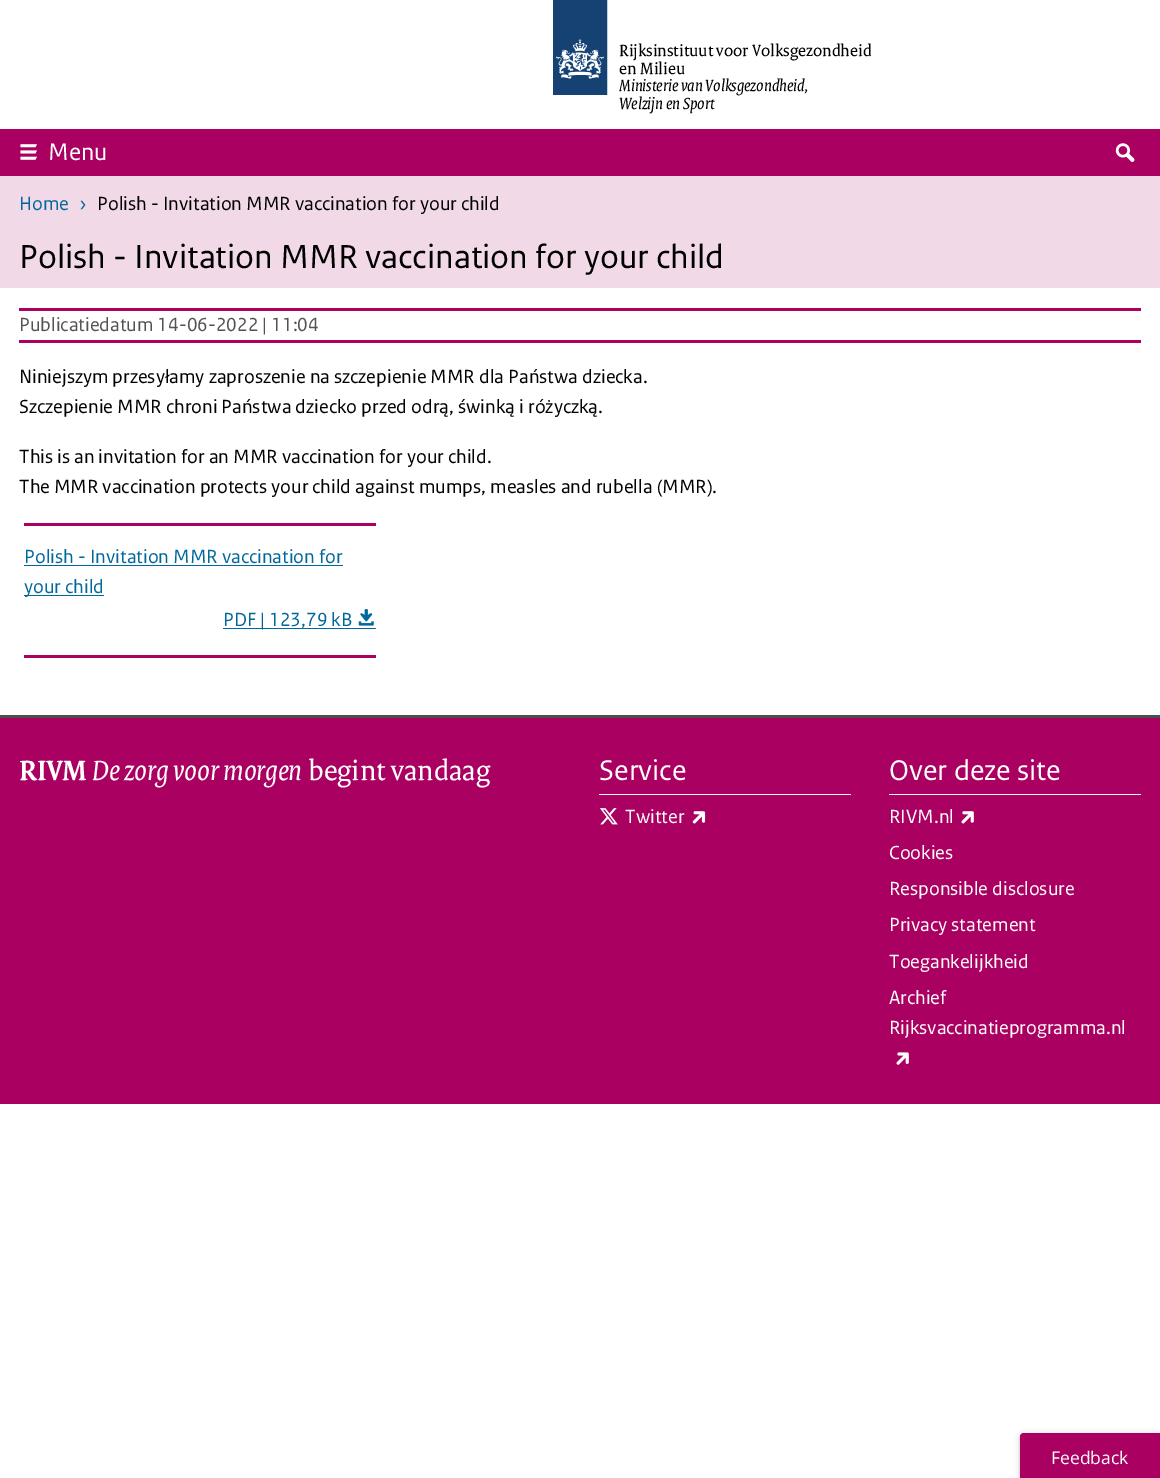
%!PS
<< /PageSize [1160 1478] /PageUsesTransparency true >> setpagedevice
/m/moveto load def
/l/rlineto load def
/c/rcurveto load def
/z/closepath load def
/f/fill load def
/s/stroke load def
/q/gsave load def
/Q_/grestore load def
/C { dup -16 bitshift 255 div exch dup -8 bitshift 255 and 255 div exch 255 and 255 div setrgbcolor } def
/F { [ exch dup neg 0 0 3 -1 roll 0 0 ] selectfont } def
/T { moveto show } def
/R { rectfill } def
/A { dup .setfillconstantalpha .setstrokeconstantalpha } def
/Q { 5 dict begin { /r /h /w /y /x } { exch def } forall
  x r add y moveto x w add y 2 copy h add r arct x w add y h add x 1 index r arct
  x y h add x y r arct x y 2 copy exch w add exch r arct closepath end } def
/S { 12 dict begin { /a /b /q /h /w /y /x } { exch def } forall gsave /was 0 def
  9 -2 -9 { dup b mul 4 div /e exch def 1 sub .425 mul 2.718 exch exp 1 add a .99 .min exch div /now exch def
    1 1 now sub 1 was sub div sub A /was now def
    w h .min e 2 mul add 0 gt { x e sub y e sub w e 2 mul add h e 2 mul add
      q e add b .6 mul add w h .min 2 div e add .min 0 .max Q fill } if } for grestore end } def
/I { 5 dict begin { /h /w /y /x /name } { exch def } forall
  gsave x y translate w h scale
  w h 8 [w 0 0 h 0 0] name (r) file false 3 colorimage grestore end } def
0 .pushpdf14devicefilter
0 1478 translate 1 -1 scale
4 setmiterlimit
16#FFFFFF C
0 0 1160 1478 R
(1.rgb) 553 0 55 95 I
/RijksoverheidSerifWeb-Regular 17.5 F
16#000000 C
(Rijksinstituut voor Volksgezondheid) 619 56 T
(en Milieu) 619 74 T
/RijksoverheidSerifWeb-Italic 17.5 F
(Ministerie van Volksgezondheid,) 619 91 T
(Welzijn en Sport) 619 109 T
16#A90061 C
0 129 1160 47 R
(2.rgb) 20 144 17 16 I
/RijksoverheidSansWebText-Regular 25 F
16#FFFFFF C
(Menu) 48 160 T
(3.rgb) 1115 143 20 19 I
16#F2D9E7 C
0 176 1160 112 R
/RijksoverheidSansWebText-Regular 20 F
16#01689B C
(Home) 19 210 T
(›) 79 210 T
16#000000 C
(Polish - Invitation MMR vaccination for your child) 97 210 T
/RijksoverheidSansWebText-Regular 35 F
(Polish - Invitation MMR vaccination for your child) 19 268 T
16#A90061 C
19 308 1122 3 R
19 340 1122 3 R
/RijksoverheidSansWebText-Regular 20 F
16#535353 C
(Publicatiedatum 14-06-2022 | 11:04) 19 331 T
16#000000 C
(Niniejszym przesyłamy zaproszenie na szczepienie MMR dla Państwa dziecka.) 19 383 T
(Szczepienie MMR chroni Państwa dziecko przed odrą, świnką i różyczką.) 19 413 T
(This is an invitation for an MMR vaccination for your child.) 19 463 T
(The MMR vaccination protects your child against mumps, measles and rubella \(MMR\).) 19 493 T
16#A90061 C
24 523 352 3 R
16#01689B C
(Polish - Invitation MMR vaccination for) 24 563 T
24 565 319 1 R
24 595 80 1 R
(your child) 24 593 T
223 628 153 1 R
(PDF | 123,79 kB) 223 626 T
(4.rgb) 358 608 16 18 I
16#A90061 C
24 655 352 3 R
0 718 1160 386 R
16#4E4E4E C
0 715 1160 3 R
/RijksoverheidSerifWeb-Bold 30 F
16#FFFFFF C
(RIVM) 19 780 T
/RijksoverheidSerifWeb-Italic 30 F
(De zorg voor morgen) 92 780 T
/RijksoverheidSerifWeb-Regular 30 F
(begint vandaag) 308 780 T
599 794 252 1 R
/RijksoverheidSansWebText-Regular 30 F
(Service) 599 780 T
(5.rgb) 599 808 19 17 I
/RijksoverheidSansWebText-Regular 20 F
(Twitter) 625 823 T
(6.rgb) 692 811 14 13 I
889 794 252 1 R
/RijksoverheidSansWebText-Regular 30 F
(Over deze site) 889 780 T
/RijksoverheidSansWebText-Regular 20 F
(RIVM.nl) 889 823 T
(7.rgb) 961 811 13 13 I
(Cookies) 889 859 T
(Responsible disclosure) 889 895 T
(Privacy statement) 889 931 T
(Toegankelijkheid) 889 968 T
(Archief) 889 1004 T
(Rijksvaccinatieprogramma.nl) 889 1034 T
(8.rgb) 896 1052 13 13 I
16#000000 C
1020 1434 140 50 4 3 .2 S
1020 1435 140 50 4 1 .14 S
16#A90061 C
1024 1433.5 m 135.5 0 l 0 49 l -139 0 l 0 -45.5 l 0 -2 1.5 -3.5 3.5 -3.5 c z q f Q_
s
/OpenSans-Regular 17.5 F
16#FFFFFF C
(Feedback) 1051 1464 T
.poppdf14devicefilter showpage
